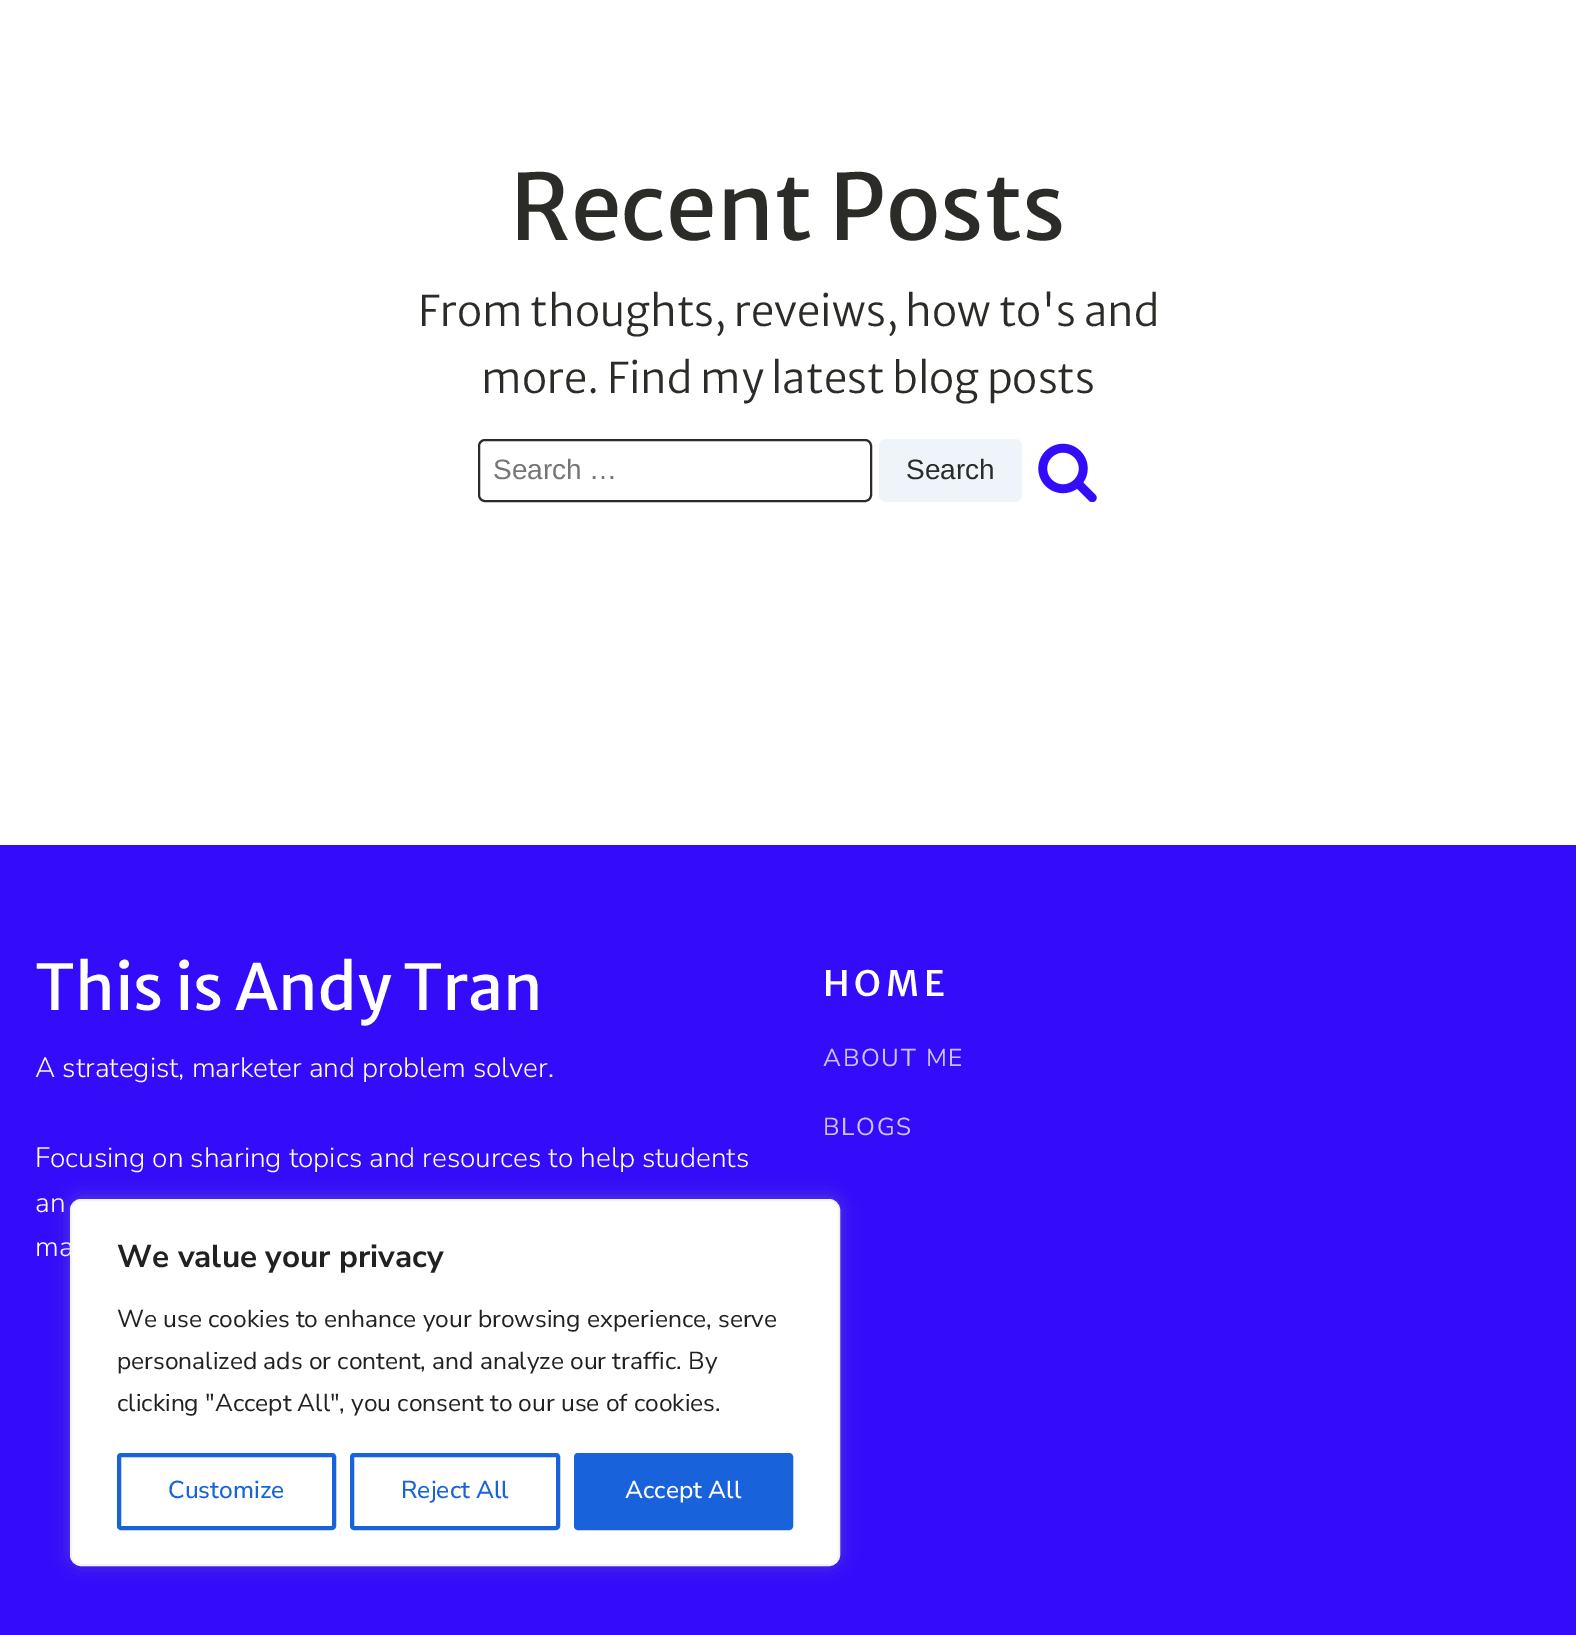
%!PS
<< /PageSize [1576 1635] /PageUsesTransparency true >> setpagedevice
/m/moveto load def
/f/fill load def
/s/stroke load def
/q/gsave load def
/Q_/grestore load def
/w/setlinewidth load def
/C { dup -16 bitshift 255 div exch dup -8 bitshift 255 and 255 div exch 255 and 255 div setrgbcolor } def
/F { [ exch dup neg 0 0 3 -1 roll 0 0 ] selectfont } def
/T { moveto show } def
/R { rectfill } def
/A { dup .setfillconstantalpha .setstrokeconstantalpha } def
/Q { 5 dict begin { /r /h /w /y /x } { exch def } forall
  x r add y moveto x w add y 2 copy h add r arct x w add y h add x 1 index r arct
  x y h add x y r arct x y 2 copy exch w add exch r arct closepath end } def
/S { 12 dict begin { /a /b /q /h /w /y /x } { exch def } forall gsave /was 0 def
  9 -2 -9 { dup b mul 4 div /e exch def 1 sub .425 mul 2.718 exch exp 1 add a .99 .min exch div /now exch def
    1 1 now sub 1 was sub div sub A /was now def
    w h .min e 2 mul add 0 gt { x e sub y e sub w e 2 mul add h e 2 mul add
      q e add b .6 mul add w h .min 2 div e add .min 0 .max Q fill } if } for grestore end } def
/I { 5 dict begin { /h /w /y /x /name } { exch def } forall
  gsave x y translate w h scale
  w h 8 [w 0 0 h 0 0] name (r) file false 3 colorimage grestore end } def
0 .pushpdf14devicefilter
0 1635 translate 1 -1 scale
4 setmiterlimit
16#FFFFFF C
0 0 1576 1635 R
/MerriweatherSans-Regular 91 F
16#2B2C27 C
(Recent Posts) 510 240 T
/MerriweatherSans-Light 42 F
(From thoughts, reveiws, how to's and) 418 326 T
(more. Find my latest blog posts) 481 393 T
16#2B2C28 C
2 w
479 440 392 61 6 Q s
/LiberationSans-Regular 28 F
16#757575 C
(Search …) 493 479 T
16#EFF4FB C
879 439 143 63 7 Q f
16#2B2C27 C
(Search) 906 479 T
(1.rgb) 1038 443 59 59 I
16#340CFA C
0 845 1576 790 R
/MerriweatherSans-Regular 63 F
16#FFFFFF C
(This is Andy Tran) 35 1010 T
/NunitoSans-Light 28 F
(A strategist, marketer and problem solver.) 35 1077 T
(Focusing on sharing topics and resources to help students) 35 1167 T
(an) 35 1212 T
(ma) 35 1256 T
/MerriweatherSans-Medium 35 F
823 996 m 5 0 (HOME) ashow
/NunitoSans-Regular 24.5 F
16#CCC2FE C
823 1066 m 1.75 0 (ABOUT ME) ashow
823 1135 m 1.75 0 (BLOGS) ashow
16#ACABAB C
70 1197 770 368 11 9 .3 S
16#FFFFFF C
71 1200 768 365 10 Q q f Q_
16#F4F4F4 C
s
/NunitoSans-Bold 31.5 F
16#212121 C
(We value your privacy) 117 1267 T
/NunitoSans-Regular 24.5 F
(We use cookies to enhance your browsing experience, serve) 117 1327 T
(personalized ads or content, and analyze our traffic. By) 117 1369 T
(clicking "Accept All", you consent to our use of cookies.) 117 1411 T
16#1863DC C
4 w
119 1455 215 73 2 Q s
/NunitoSans-Medium 24.5 F
(Customize) 168 1498 T
352 1455 206 73 2 Q s
(Reject All) 401 1498 T
576 1455 215 73 2 Q q f Q_
s
16#FFFFFF C
(Accept All) 625 1498 T
.poppdf14devicefilter showpage
